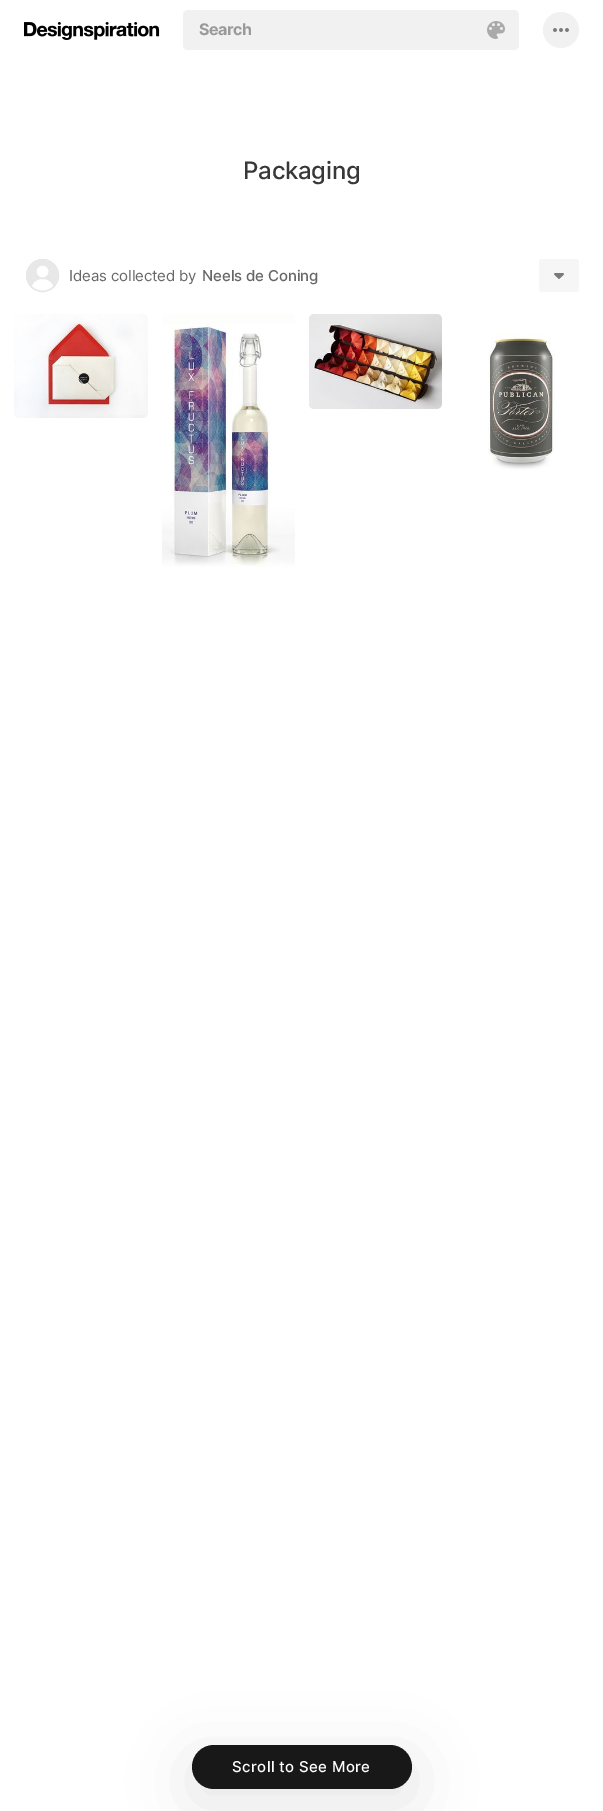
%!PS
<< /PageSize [603 1811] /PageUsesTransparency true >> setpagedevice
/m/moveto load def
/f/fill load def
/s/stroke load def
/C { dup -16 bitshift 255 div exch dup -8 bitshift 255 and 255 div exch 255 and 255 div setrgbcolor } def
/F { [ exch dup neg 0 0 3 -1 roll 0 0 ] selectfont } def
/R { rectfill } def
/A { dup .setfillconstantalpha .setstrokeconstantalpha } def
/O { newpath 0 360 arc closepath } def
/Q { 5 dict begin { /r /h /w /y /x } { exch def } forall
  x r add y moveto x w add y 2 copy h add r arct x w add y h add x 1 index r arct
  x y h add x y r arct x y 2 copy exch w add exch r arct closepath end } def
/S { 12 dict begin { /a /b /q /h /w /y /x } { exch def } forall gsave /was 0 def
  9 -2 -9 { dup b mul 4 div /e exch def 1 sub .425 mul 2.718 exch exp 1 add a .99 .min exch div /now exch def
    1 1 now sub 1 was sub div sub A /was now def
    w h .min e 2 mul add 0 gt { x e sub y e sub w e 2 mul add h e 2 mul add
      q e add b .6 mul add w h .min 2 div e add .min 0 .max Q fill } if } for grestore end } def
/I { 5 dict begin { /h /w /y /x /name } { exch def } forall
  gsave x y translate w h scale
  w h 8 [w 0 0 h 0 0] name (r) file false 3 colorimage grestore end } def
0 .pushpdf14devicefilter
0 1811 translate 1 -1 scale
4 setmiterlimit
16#FFFFFF C
0 0 603 1811 R
(1.rgb) 24 22 136 18 I
16#F1F1F1 C
183 10 336 40 5 Q f
/Inter-Bold 16 F
16#9A9A9A C
199 35 m -.5 0 (Search) ashow
(2.rgb) 487 21 18 18 I
16#F1F1F1 C
561 30 18 O f
(3.rgb) 553 28 16 4 I
/Inter-Medium 24 F
16#383838 C
243 179 m -.25 0 (Packaging) ashow
0.1 A
16#000000 C
42.5 275.5 16 O s
1 A
(4.rgb) 26 259 33 33 I
/Inter-Regular 15 F
16#676767 C
69 281 m -.1 0 (Ideas collected by) ashow
/Inter-Medium 15 F
202 281 m -.1 0 (Neels de Coning) ashow
16#F6F6F6 C
539 259 40 33 3 Q f
(5.rgb) 554 273 10 6 I
16#F9F9FA C
14 314 134 104 5 Q f
(6.rgb) 14 314 134 104 I
16#FDFDFC C
162 314 133 253 5 Q f
(7.rgb) 162 324 133 242 I
16#E2DFDC C
309 314 133 95 5 Q f
(8.rgb) 309 314 133 95 I
(9.rgb) 488 333 67 137 I
16#000000 C
192 1759 220 44 22 30 .1 S
16#181818 C
192 1745 220 44 22 Q f
16#FFFFFF C
232 1772 m .4 0 (Scroll to See More) ashow
.poppdf14devicefilter showpage
